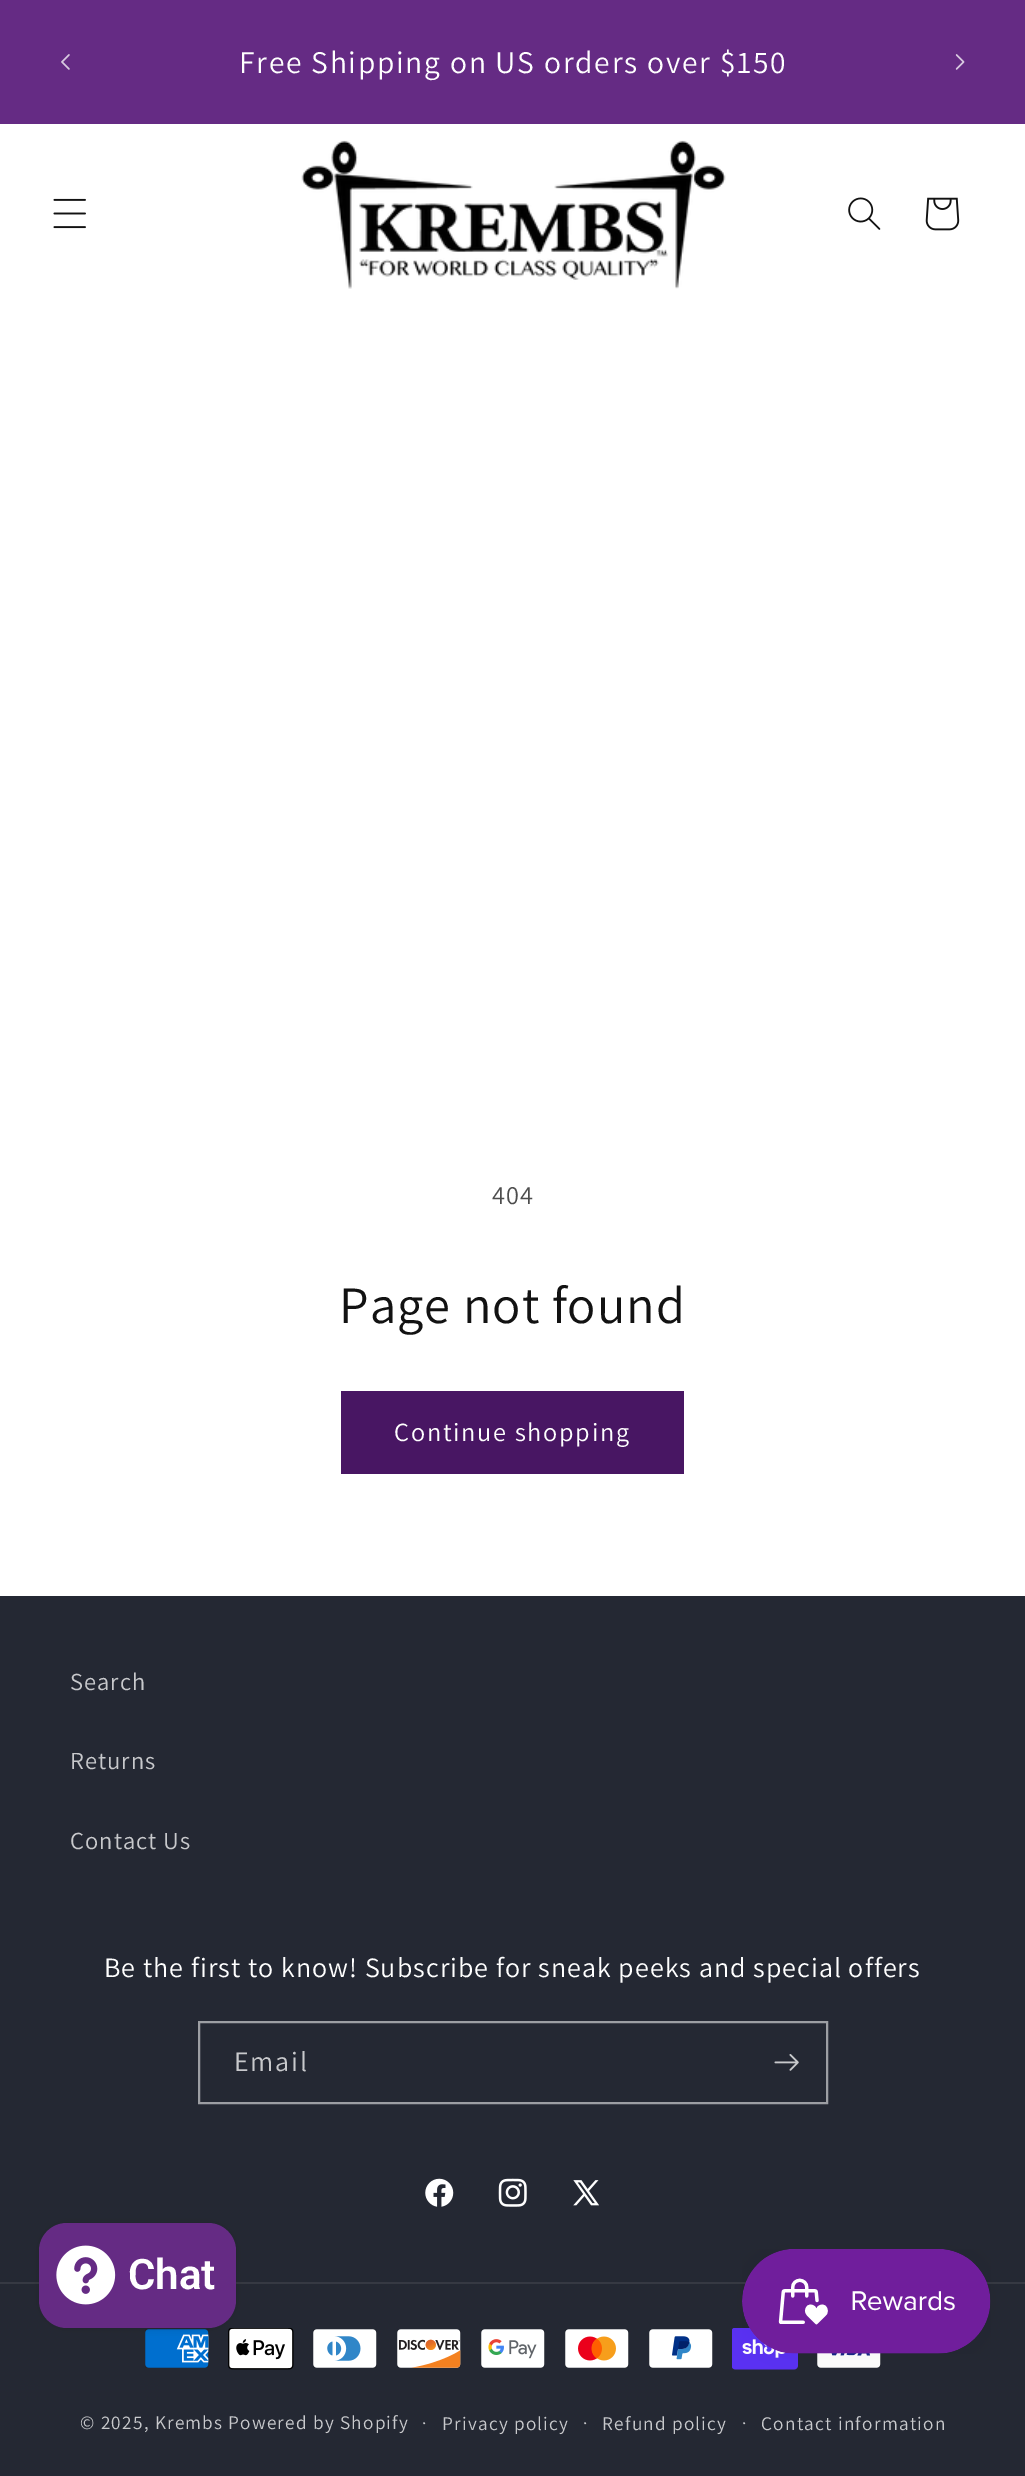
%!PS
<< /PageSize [1025 2476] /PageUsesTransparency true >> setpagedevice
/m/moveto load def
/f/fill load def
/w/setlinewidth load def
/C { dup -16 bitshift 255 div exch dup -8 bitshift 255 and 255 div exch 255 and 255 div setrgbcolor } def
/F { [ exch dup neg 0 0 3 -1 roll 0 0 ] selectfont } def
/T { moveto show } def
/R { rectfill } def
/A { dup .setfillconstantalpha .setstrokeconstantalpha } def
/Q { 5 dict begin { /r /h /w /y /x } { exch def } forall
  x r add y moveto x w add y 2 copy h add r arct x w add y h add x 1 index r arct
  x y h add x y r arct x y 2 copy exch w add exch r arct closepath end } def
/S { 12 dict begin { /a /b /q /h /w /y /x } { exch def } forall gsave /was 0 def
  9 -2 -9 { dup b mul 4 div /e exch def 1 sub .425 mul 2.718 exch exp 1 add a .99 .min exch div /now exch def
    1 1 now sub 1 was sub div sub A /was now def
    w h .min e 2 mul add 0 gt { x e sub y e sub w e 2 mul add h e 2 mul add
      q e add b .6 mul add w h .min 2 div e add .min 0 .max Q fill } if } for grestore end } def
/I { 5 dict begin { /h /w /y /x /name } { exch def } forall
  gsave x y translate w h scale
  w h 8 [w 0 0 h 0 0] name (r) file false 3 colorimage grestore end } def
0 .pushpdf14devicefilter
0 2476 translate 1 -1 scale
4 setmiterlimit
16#FFFFFF C
0 0 1025 2476 R
16#652B84 C
0 0 1025 124 R
(1.rgb) 61 54 9 16 I
/Assistant-Regular 31.5 F
16#FFFFFF C
239 73 m 1.75 0 (Free Shipping on US orders over $150) ashow
(2.rgb) 955 54 10 16 I
(3.rgb) 53 198 33 31 I
(4.rgb) 301 140 425 149 I
(5.rgb) 848 197 33 33 I
(6.rgb) 925 197 35 34 I
/Assistant-Regular 26.25 F
16#4D4D4D C
492 1204 m 1.05 0 (404) ashow
/Assistant-Regular 52.5 F
16#121212 C
339 1323 m 1.05 0 (Page not found) ashow
16#481663 C
341 1391 343 83 R
/Assistant-Regular 26.25 F
16#FFFFFF C
394 1441 m 1.75 0 (Continue shopping) ashow
16#242833 C
0 1596 1025 880 R
/Assistant-Regular 24.5 F
16#C8C9CC C
70 1690 m 1.05 0 (Search) ashow
70 1769 m 1.05 0 (Returns) ashow
70 1849 m 1.05 0 (Contact Us) ashow
/Assistant-Regular 28 F
16#FFFFFF C
104 1977 m 1.05 0 (Be the first to know! Subscribe for sneak peeks and special offers) ashow
16#9C9EA3 C
2 w
199 2022 628 81 rectstroke
16#C8C9CC C
234 2071 m 1.75 0 (Email) ashow
(7.rgb) 774 2054 25 17 I
(8.rgb) 425 2178 29 29 I
(9.rgb) 498 2178 29 29 I
(10.rgb) 573 2180 26 26 I
16#363943 C
0 2282 1025 2 R
(11.rgb) 145 2329 64 39 I
(12.rgb) 228 2328 66 42 I
(13.rgb) 313 2329 64 39 I
(14.rgb) 397 2329 64 39 I
(15.rgb) 481 2329 64 39 I
(16.rgb) 565 2329 64 39 I
(17.rgb) 649 2329 64 39 I
(18.rgb) 732 2328 66 42 I
(19.rgb) 817 2353 64 15 I
/Assistant-Regular 19.25 F
16#C8C9CC C
80 2429 m 1.25 0 (© 2025, Krembs) ashow
228 2429 m 1.25 0 (Powered by Shopify) ashow
/Assistant-Regular 18 F
422 2429 m 1.25 0 (·) ashow
/Assistant-Regular 19.25 F
442 2430 m 1.25 0 (Privacy policy) ashow
/Assistant-Regular 18 F
583 2429 m 1.25 0 (·) ashow
/Assistant-Regular 19.25 F
602 2430 m 1.25 0 (Refund policy) ashow
/Assistant-Regular 18 F
742 2429 m 1.25 0 (·) ashow
/Assistant-Regular 19.25 F
761 2430 m 1.25 0 (Contact information) ashow
16#000000 C
39 2223 197 105 28 4.5 .15 S
16#652B84 C
39 2223 197 105 28 Q f
(20.rgb) 56 2245 60 60 I
/Roboto-SemiBold 42 F
16#FFFFFF C
(Chat) 128 2289 T
16#000000 C
742 2249 249 105 52.5 22 .05 S
(21.rgb) 742 2249 249 105 I
.poppdf14devicefilter showpage
